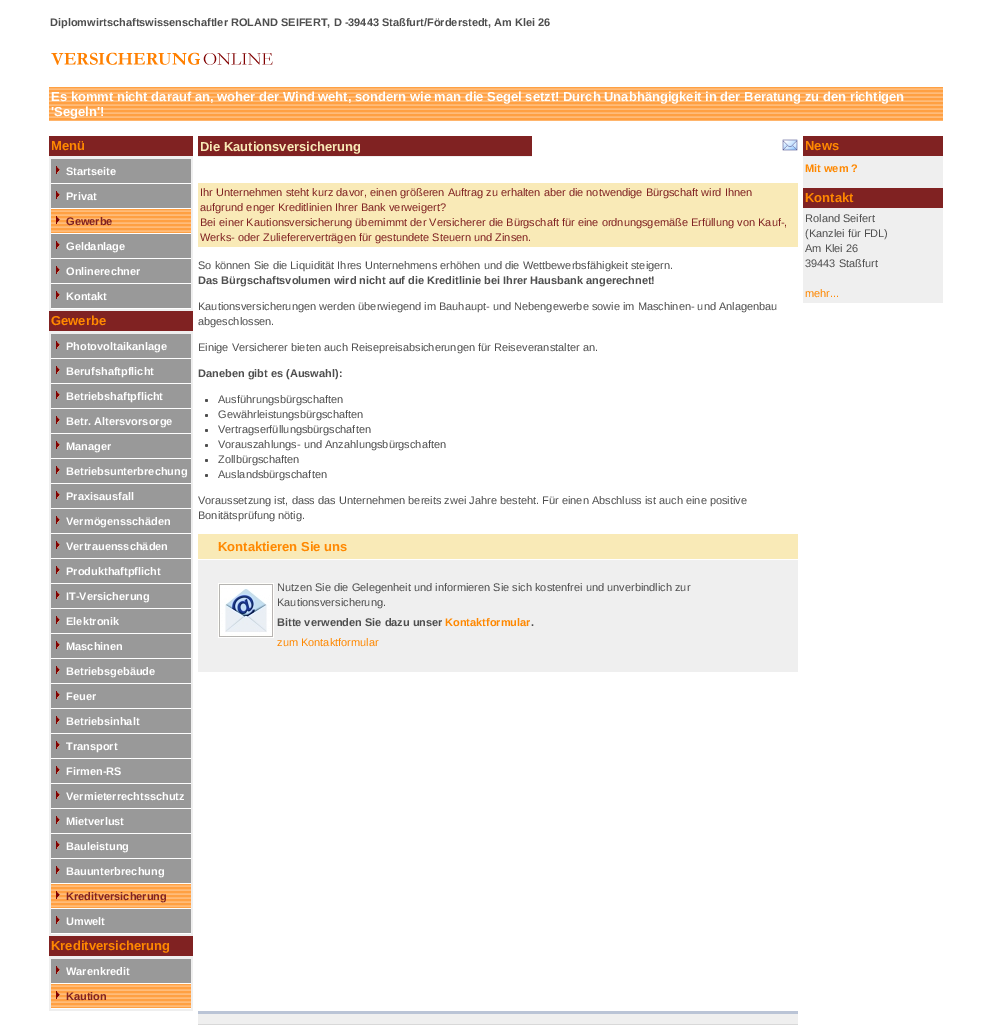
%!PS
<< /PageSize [981 1033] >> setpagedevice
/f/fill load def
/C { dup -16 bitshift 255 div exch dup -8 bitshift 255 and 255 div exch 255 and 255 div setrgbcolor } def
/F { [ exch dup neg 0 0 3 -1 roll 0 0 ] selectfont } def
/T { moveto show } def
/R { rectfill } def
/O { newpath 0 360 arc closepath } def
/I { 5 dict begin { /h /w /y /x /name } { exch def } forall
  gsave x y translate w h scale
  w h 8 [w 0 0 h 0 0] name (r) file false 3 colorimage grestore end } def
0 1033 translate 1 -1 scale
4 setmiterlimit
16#FFFFFF C
0 0 981 1033 R
/LiberationSans-Bold 11 F
16#4E4E4E C
(Diplomwirtschaftswissenschaftler ROLAND SEIFERT, D -39443 Staßfurt/Förderstedt, Am Klei 26) 50 26 T
(1.rgb) 51 52 222 13 I
(2.rgb) 49 87 894 34 I
/LiberationSans-Bold 13 F
16#FFFFFF C
(Es kommt nicht darauf an, woher der Wind weht, sondern wie man die Segel setzt! Durch Unabhängigkeit in der Beratung zu den richtigen) 51 101 T
('Segeln'!) 51 116 T
16#802222 C
49 136 144 20 R
16#EFEFEF C
49 156 144 155 R
16#FF8800 C
(Menü) 51 150 T
16#999999 C
51 159 140 24 R
16#FFFFFF C
51 183 140 1 R
(3.rgb) 56 166 4 8 I
/LiberationSans-Bold 11 F
(Startseite) 66 175 T
16#999999 C
51 184 140 24 R
16#FFFFFF C
51 208 140 1 R
(3.rgb) 56 191 4 8 I
(Privat) 66 200 T
(4.rgb) 51 209 140 24 I
51 233 140 1 R
(5.rgb) 56 216 4 8 I
16#802222 C
(Gewerbe) 66 225 T
16#999999 C
51 234 140 24 R
16#FFFFFF C
51 258 140 1 R
(3.rgb) 56 241 4 8 I
(Geldanlage) 66 250 T
16#999999 C
51 259 140 24 R
16#FFFFFF C
51 283 140 1 R
(3.rgb) 56 266 4 8 I
(Onlinerechner) 66 275 T
16#999999 C
51 284 140 24 R
16#FFFFFF C
51 308 140 1 R
(3.rgb) 56 291 4 8 I
(Kontakt) 66 300 T
16#802222 C
49 311 144 20 R
16#EFEFEF C
49 331 144 605 R
/LiberationSans-Bold 13 F
16#FF8800 C
(Gewerbe) 51 325 T
16#999999 C
51 334 140 24 R
16#FFFFFF C
51 358 140 1 R
(3.rgb) 56 341 4 8 I
/LiberationSans-Bold 11 F
(Photovoltaikanlage) 66 350 T
16#999999 C
51 359 140 24 R
16#FFFFFF C
51 383 140 1 R
(3.rgb) 56 366 4 8 I
(Berufshaftpflicht) 66 375 T
16#999999 C
51 384 140 24 R
16#FFFFFF C
51 408 140 1 R
(3.rgb) 56 391 4 8 I
(Betriebshaftpflicht) 66 400 T
16#999999 C
51 409 140 24 R
16#FFFFFF C
51 433 140 1 R
(3.rgb) 56 416 4 8 I
(Betr. Altersvorsorge) 66 425 T
16#999999 C
51 434 140 24 R
16#FFFFFF C
51 458 140 1 R
(3.rgb) 56 441 4 8 I
(Manager) 66 450 T
16#999999 C
51 459 140 24 R
16#FFFFFF C
51 483 140 1 R
(3.rgb) 56 466 4 8 I
(Betriebsunterbrechung) 66 475 T
16#999999 C
51 484 140 24 R
16#FFFFFF C
51 508 140 1 R
(3.rgb) 56 491 4 8 I
(Praxisausfall) 66 500 T
16#999999 C
51 509 140 24 R
16#FFFFFF C
51 533 140 1 R
(3.rgb) 56 516 4 8 I
(Vermögensschäden) 66 525 T
16#999999 C
51 534 140 24 R
16#FFFFFF C
51 558 140 1 R
(3.rgb) 56 541 4 8 I
(Vertrauensschäden) 66 550 T
16#999999 C
51 559 140 24 R
16#FFFFFF C
51 583 140 1 R
(3.rgb) 56 566 4 8 I
(Produkthaftpflicht) 66 575 T
16#999999 C
51 584 140 24 R
16#FFFFFF C
51 608 140 1 R
(3.rgb) 56 591 4 8 I
(IT-Versicherung) 66 600 T
16#999999 C
51 609 140 24 R
16#FFFFFF C
51 633 140 1 R
(3.rgb) 56 616 4 8 I
(Elektronik) 66 625 T
16#999999 C
51 634 140 24 R
16#FFFFFF C
51 658 140 1 R
(3.rgb) 56 641 4 8 I
(Maschinen) 66 650 T
16#999999 C
51 659 140 24 R
16#FFFFFF C
51 683 140 1 R
(3.rgb) 56 666 4 8 I
(Betriebsgebäude) 66 675 T
16#999999 C
51 684 140 24 R
16#FFFFFF C
51 708 140 1 R
(3.rgb) 56 691 4 8 I
(Feuer) 66 700 T
16#999999 C
51 709 140 24 R
16#FFFFFF C
51 733 140 1 R
(3.rgb) 56 716 4 8 I
(Betriebsinhalt) 66 725 T
16#999999 C
51 734 140 24 R
16#FFFFFF C
51 758 140 1 R
(3.rgb) 56 741 4 8 I
(Transport) 66 750 T
16#999999 C
51 759 140 24 R
16#FFFFFF C
51 783 140 1 R
(3.rgb) 56 766 4 8 I
(Firmen-RS) 66 775 T
16#999999 C
51 784 140 24 R
16#FFFFFF C
51 808 140 1 R
(3.rgb) 56 791 4 8 I
(Vermieterrechtsschutz) 66 800 T
16#999999 C
51 809 140 24 R
16#FFFFFF C
51 833 140 1 R
(3.rgb) 56 816 4 8 I
(Mietverlust) 66 825 T
16#999999 C
51 834 140 24 R
16#FFFFFF C
51 858 140 1 R
(3.rgb) 56 841 4 8 I
(Bauleistung) 66 850 T
16#999999 C
51 859 140 24 R
16#FFFFFF C
51 883 140 1 R
(3.rgb) 56 866 4 8 I
(Bauunterbrechung) 66 875 T
(4.rgb) 51 884 140 24 I
51 908 140 1 R
(5.rgb) 56 891 4 8 I
16#802222 C
(Kreditversicherung) 66 900 T
16#999999 C
51 909 140 24 R
16#FFFFFF C
51 933 140 1 R
(3.rgb) 56 916 4 8 I
(Umwelt) 66 925 T
16#802222 C
49 936 144 20 R
16#EFEFEF C
49 956 144 55 R
/LiberationSans-Bold 13 F
16#FF8800 C
(Kreditversicherung) 51 950 T
16#999999 C
51 959 140 24 R
16#FFFFFF C
51 983 140 1 R
(3.rgb) 56 966 4 8 I
/LiberationSans-Bold 11 F
(Warenkredit) 66 975 T
(4.rgb) 51 984 140 24 I
51 1008 140 1 R
(5.rgb) 56 991 4 8 I
16#802222 C
(Kaution) 66 1000 T
198 136 334 20 R
16#EFEFEF C
198 156 334 1 R
/LiberationSans-Bold 13 F
16#F9EAB7 C
(Die Kautionsversicherung) 200 151 T
(6.rgb) 782 139 16 12 I
198 183 600 64 R
/LiberationSans-Regular 11 F
16#802222 C
(Ihr Unternehmen steht kurz davor, einen größeren Auftrag zu erhalten aber die notwendige Bürgschaft wird Ihnen) 200 196 T
(aufgrund enger Kreditlinien Ihrer Bank verweigert?) 200 211 T
(Bei einer Kautionsversicherung übernimmt der Versicherer die Bürgschaft für eine ordnungsgemäße Erfüllung von Kauf-,) 200 226 T
(Werks- oder Zuliefererverträgen für gestundete Steuern und Zinsen.) 200 241 T
16#4E4E4E C
(So können Sie die Liquidität Ihres Unternehmens erhöhen und die Wettbewerbsfähigkeit steigern.) 198 269 T
/LiberationSans-Bold 11 F
(Das Bürgschaftsvolumen wird nicht auf die Kreditlinie bei Ihrer Hausbank angerechnet!) 198 284 T
/LiberationSans-Regular 11 F
(Kautionsversicherungen werden überwiegend im Bauhaupt- und Nebengewerbe sowie im Maschinen- und Anlagenbau) 198 310 T
(abgeschlossen.) 198 325 T
(Einige Versicherer bieten auch Reisepreisabsicherungen für Reiseveranstalter an.) 198 351 T
/LiberationSans-Bold 11 F
(Daneben gibt es \(Auswahl\):) 198 377 T
206.5 400.5 1.5 O f
/LiberationSans-Regular 11 F
(Ausführungsbürgschaften) 218 403 T
206.5 415.5 1.5 O f
(Gewährleistungsbürgschaften) 218 418 T
206.5 430.5 1.5 O f
(Vertragserfüllungsbürgschaften) 218 433 T
206.5 445.5 1.5 O f
(Vorauszahlungs- und Anzahlungsbürgschaften) 218 448 T
206.5 460.5 1.5 O f
(Zollbürgschaften) 218 463 T
206.5 475.5 1.5 O f
(Auslandsbürgschaften) 218 478 T
(Voraussetzung ist, dass das Unternehmen bereits zwei Jahre besteht. Für einen Abschluss ist auch eine positive) 198 504 T
(Bonitätsprüfung nötig.) 198 519 T
16#F9EAB7 C
198 534 600 25 R
/LiberationSans-Bold 13 F
16#FF8800 C
(Kontaktieren Sie uns) 218 551 T
16#EFEFEF C
198 560 600 112 R
(7.rgb) 218 583 56 55 I
/LiberationSans-Regular 11 F
16#4E4E4E C
(Nutzen Sie die Gelegenheit und informieren Sie sich kostenfrei und unverbindlich zur) 277 591 T
(Kautionsversicherung.) 277 606 T
/LiberationSans-Bold 11 F
(Bitte verwenden Sie dazu unser) 277 626 T
16#FF8800 C
(Kontaktformular) 445 626 T
16#4E4E4E C
(.) 531 626 T
/LiberationSans-Regular 11 F
16#FF8800 C
(zum Kontaktformular) 277 646 T
16#802222 C
803 136 140 20 R
16#EFEFEF C
803 156 140 32 R
/LiberationSans-Bold 13 F
16#FF8800 C
(News) 805 150 T
/LiberationSans-Bold 11 F
(Mit wem ?) 805 172 T
16#802222 C
803 188 140 20 R
16#EFEFEF C
803 208 140 95 R
/LiberationSans-Bold 13 F
16#FF8800 C
(Kontakt) 805 202 T
/LiberationSans-Regular 11 F
16#4E4E4E C
(Roland Seifert) 805 222 T
(\(Kanzlei für FDL\)) 805 237 T
(Am Klei 26) 805 252 T
(39443 Staßfurt) 805 267 T
16#FF8800 C
(mehr...) 805 297 T
16#BAC4D6 C
198 1011 600 3 R
16#EFEFEF C
198 1014 600 10 R
16#D8D8D8 C
198 1024 600 1 R
showpage
